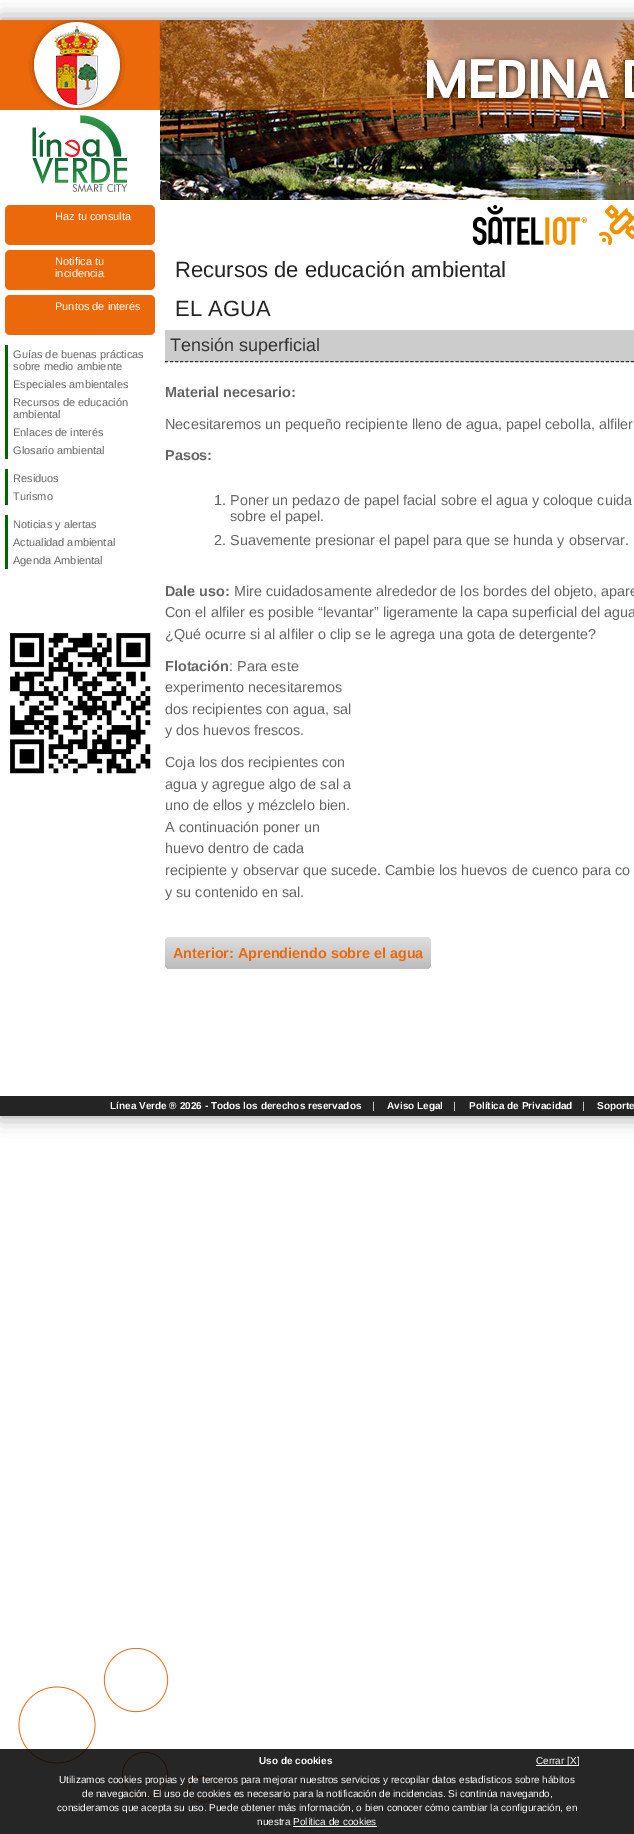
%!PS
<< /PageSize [634 1834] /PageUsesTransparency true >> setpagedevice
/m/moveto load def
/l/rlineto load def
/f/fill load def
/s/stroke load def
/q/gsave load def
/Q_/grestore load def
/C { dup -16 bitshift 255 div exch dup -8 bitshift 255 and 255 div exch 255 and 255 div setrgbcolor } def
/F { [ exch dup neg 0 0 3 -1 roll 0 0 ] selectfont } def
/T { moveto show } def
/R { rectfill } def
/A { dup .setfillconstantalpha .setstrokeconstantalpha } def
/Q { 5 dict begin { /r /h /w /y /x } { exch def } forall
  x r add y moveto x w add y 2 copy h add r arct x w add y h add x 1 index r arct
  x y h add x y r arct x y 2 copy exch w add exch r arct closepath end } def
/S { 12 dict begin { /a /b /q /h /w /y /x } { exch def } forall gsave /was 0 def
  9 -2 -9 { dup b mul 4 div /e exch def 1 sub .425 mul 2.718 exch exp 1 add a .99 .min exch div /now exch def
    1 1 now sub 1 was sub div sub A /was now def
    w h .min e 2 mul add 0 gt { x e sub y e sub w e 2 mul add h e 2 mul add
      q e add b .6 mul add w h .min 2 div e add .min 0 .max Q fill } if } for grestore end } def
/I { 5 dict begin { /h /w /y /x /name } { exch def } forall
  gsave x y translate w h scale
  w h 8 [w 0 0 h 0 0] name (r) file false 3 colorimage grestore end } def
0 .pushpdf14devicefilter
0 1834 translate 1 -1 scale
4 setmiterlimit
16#FFFFFF C
0 0 634 1834 R
(1.rgb) 18 1648 198 155 I
16#000000 C
0 20 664 1096 0 10 .4 S
16#FFFFFF C
0 110 634 986 R
(2.rgb) 0 20 634 90 I
(3.rgb) 32 115 96 77 I
(4.rgb) 160 110 474 90 I
(5.rgb) 473 205 161 40 I
16#EB690B C
5 205 150 40 5 Q f
/LiberationSans-Regular 11 F
16#FFFFFF C
(Haz tu consulta) 55 220 T
16#EB690B C
5 250 150 40 5 Q f
16#FFFFFF C
(Notifica tu) 55 265 T
(incidencia) 55 277 T
16#EB690B C
5 295 150 40 5 Q f
16#FFFFFF C
(Puntos de interés) 55 310 T
16#006600 C
5 345 3 114 R
16#666666 C
(Guías de buenas prácticas) 13 358 T
(sobre medio ambiente) 13 370 T
(Especiales ambientales) 13 388 T
(Recursos de educación) 13 406 T
(ambiental) 13 418 T
(Enlaces de interés) 13 436 T
(Glosario ambiental) 13 454 T
16#006600 C
5 469 3 36 R
16#666666 C
(Residuos) 13 482 T
(Turismo) 13 500 T
16#006600 C
5 515 3 54 R
16#666666 C
(Noticias y alertas) 13 528 T
(Actualidad ambiental) 13 546 T
(Agenda Ambiental) 13 564 T
(6.rgb) 10 633 141 141 I
/LiberationSans-Regular 22 F
16#242424 C
(Recursos de educación ambiental) 175 277 T
(EL AGUA) 175 316 T
16#CCCCCC C
165 330 469 32 R
16#333333 C
[3 2.01] 0 setdash
165 361.5 m 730 0 l s
/LiberationSans-Regular 18 F
(Tensión superficial) 170 351 T
/LiberationSans-Bold 14.4 F
16#666666 C
(Material necesario:) 165 397 T
/LiberationSans-Regular 14.4 F
(Necesitaremos un pequeño recipiente lleno de agua, papel cebolla, alfiler) 165 429 T
/LiberationSans-Bold 14.4 F
(Pasos:) 165 460 T
/LiberationSans-Regular 14.4 F
(1. Poner un pedazo de papel facial sobre el agua y coloque cuida) 214 505 T
(sobre el papel.) 230 521 T
(2. Suavemente presionar el papel para que se hunda y observar.) 214 545 T
/LiberationSans-Bold 14.4 F
(Dale uso:) 165 596 T
/LiberationSans-Regular 14.4 F
(Mire cuidadosamente alrededor de los bordes del objeto, apare) 234 596 T
(Con el alfiler es posible “levantar” ligeramente la capa superficial del agua) 165 617 T
(¿Qué ocurre si al alfiler o clip se le agrega una gota de detergente?) 165 639 T
/LiberationSans-Bold 14.4 F
(Flotación) 165 671 T
/LiberationSans-Regular 14.4 F
(: Para este) 229 671 T
(experimento necesitaremos) 165 692 T
(dos recipientes con agua, sal) 165 714 T
(y dos huevos frescos.) 165 735 T
(Coja los dos recipientes con) 165 767 T
(agua y agregue algo de sal a) 165 789 T
(uno de ellos y mézclelo bien.) 165 810 T
(A continuación poner un) 165 832 T
(huevo dentro de cada) 165 853 T
(recipiente y observar que sucede. Cambie los huevos de cuenco para co) 165 875 T
(y su contenido en sal.) 165 897 T
q 165 937 266 32 5 Q clip newpath
<< /ShadingType 2 /ColorSpace /DeviceRGB /Coords [298 937 298 969] /Extend [true true] /Function << /FunctionType 2 /Domain [0 1] /C0 [.871 .871 .871] /C1 [.737 .737 .737] /N 1 >> >> shfill Q_
/LiberationSans-Bold 14.4 F
16#EB690B C
(Anterior: Aprendiendo sobre el agua) 173 958 T
16#242424 C
0 1096 634 20 R
/LiberationSans-Bold 10 F
16#FFFFFF C
(Línea Verde ® 2026 - Todos los derechos reservados) 110 1109 T
/LiberationSans-Regular 10 F
(|) 372 1109 T
/LiberationSans-Bold 10 F
(Aviso Legal) 387 1109 T
/LiberationSans-Regular 10 F
(|) 453 1109 T
/LiberationSans-Bold 10 F
(Política de Privacidad) 469 1109 T
/LiberationSans-Regular 10 F
(|) 582 1109 T
/LiberationSans-Bold 10 F
(Soporte) 597 1109 T
0.85 A
16#000000 C
0 1749 634 85 R
1 A
16#FFFFFF C
(Uso de cookies) 259 1764 T
536 1765 43 1 R
/LiberationSans-Regular 10 F
(Cerrar [X]) 536 1764 T
(Utilizamos cookies propias y de terceros para mejorar nuestros servicios y recopilar datos estadísticos sobre hábitos) 59 1783 T
(de navegación. El uso de cookies es necesario para la notificación de incidencias. Si continúa navegando,) 82 1797 T
(consideramos que acepta su uso. Puede obtener más información, o bien conocer cómo cambiar la configuración, en) 57 1811 T
(nuestra Política de cookies) 257 1825 T
293 1826 84 1 R
.poppdf14devicefilter showpage
